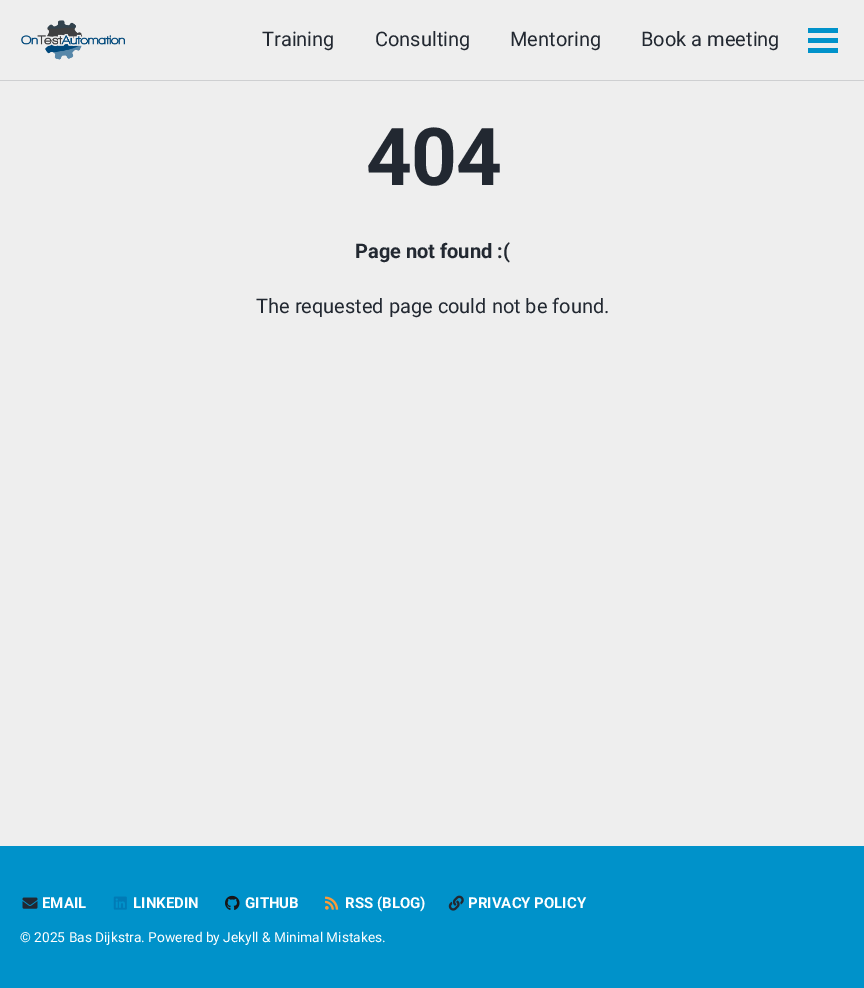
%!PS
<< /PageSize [864 988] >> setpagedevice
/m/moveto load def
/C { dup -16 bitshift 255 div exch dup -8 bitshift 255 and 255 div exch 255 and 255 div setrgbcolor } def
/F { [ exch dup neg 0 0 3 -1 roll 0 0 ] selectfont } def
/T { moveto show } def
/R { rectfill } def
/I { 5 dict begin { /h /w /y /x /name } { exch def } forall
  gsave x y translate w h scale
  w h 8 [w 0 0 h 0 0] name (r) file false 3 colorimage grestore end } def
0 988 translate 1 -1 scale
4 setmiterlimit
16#EEEEEE C
0 0 864 988 R
16#CECFD1 C
0 80 864 1 R
(1.rgb) 21 20 104 40 I
/Roboto-Regular 20 F
16#222831 C
(Training) 262 46 T
(Consulting) 375 46 T
(Mentoring) 510 46 T
(Book a meeting) 641 46 T
16#0092CA C
808 38 30 5 R
808 28 30 5 R
808 48 30 5 R
/Roboto-Bold 80 F
16#222831 C
366 185 m -1 0 (404) ashow
/Roboto-Bold 20 F
(Page not found :\() 355 258 T
/Roboto-Regular 20 F
(The requested page could not be found.) 256 313 T
16#0092CA C
0 846 864 142 R
(2.rgb) 22 897 16 12 I
/Roboto-Bold 15 F
16#FFFFFF C
(EMAIL) 42 908 T
(3.rgb) 113 896 14 14 I
(LINKEDIN) 133 908 T
(4.rgb) 225 895 15 15 I
(GITHUB) 245 908 T
(5.rgb) 325 896 14 14 I
(RSS \(BLOG\)) 345 908 T
(6.rgb) 448 895 16 16 I
(PRIVACY POLICY) 468 908 T
/Roboto-Regular 13.75 F
(© 2025 Bas Dijkstra. Powered by Jekyll & Minimal Mistakes.) 20 942 T
showpage
